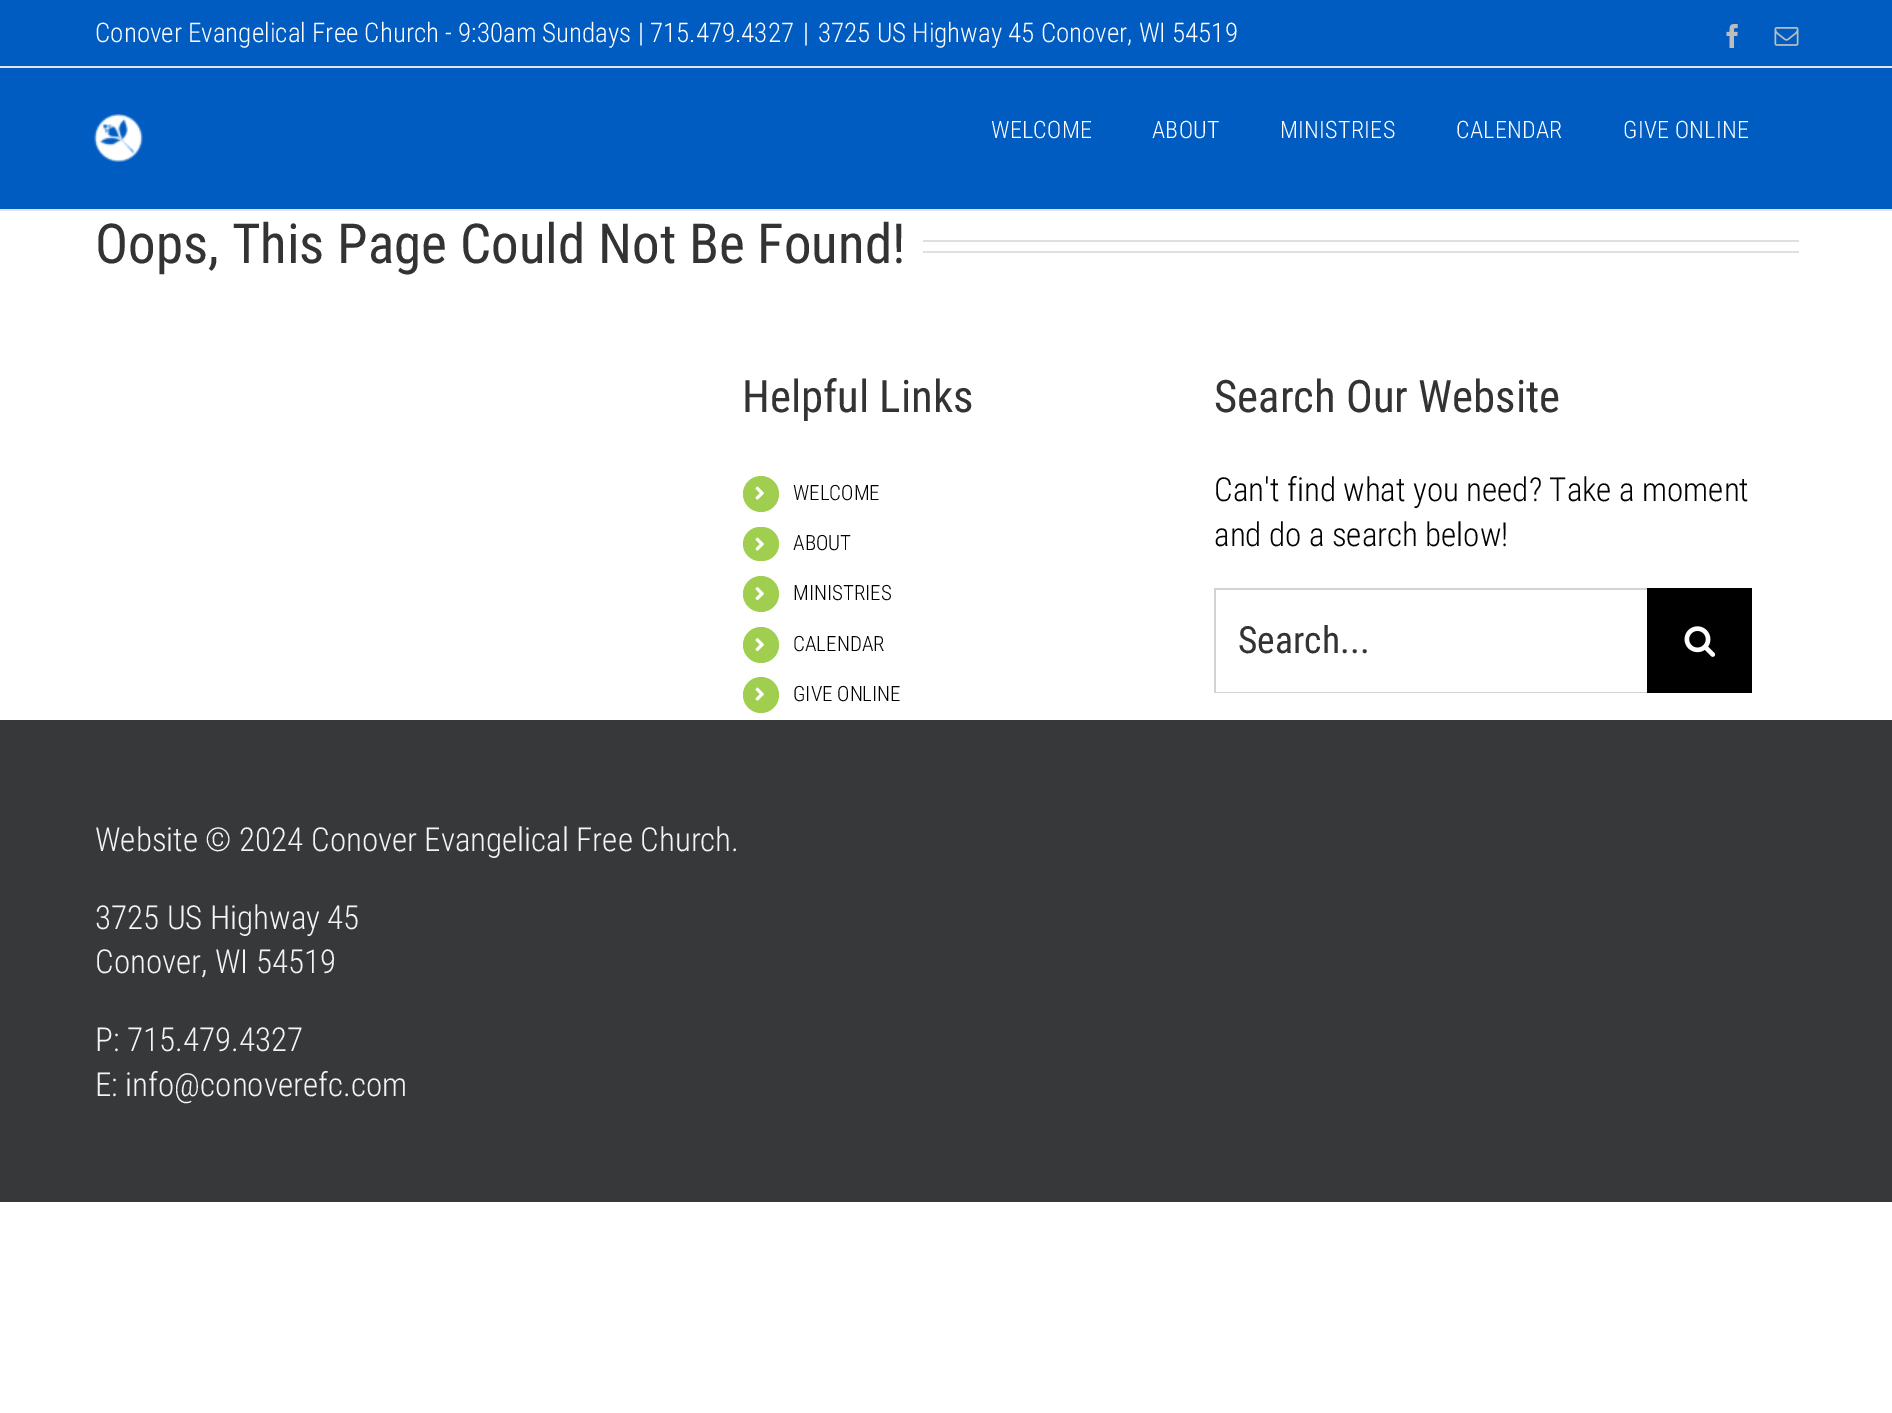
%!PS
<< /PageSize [1892 1413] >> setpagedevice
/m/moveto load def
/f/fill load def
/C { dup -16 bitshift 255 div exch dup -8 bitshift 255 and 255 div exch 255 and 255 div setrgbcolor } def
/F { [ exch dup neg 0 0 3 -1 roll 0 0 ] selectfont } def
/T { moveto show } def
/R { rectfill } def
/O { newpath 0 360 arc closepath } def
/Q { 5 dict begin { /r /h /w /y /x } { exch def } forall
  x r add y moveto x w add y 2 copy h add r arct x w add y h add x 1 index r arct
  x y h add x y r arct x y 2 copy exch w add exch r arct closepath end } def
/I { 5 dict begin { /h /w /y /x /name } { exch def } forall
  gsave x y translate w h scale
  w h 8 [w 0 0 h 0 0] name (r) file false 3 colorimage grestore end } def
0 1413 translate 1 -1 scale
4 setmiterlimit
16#FFFFFF C
0 0 1892 1413 R
16#005CC1 C
0 0 1892 66 R
16#E5E5E5 C
0 66 1892 2 R
/RobotoCondensed-Light 27 F
16#FFFFFF C
(Conover Evangelical Free Church - 9:30am Sundays | 715.479.4327) 95 42 T
(|) 803 42 T
(3725 US Highway 45 Conover, WI 54519) 818 42 T
(1.rgb) 1726 24 12 24 I
(2.rgb) 1774 27 25 19 I
16#005CC1 C
0 68 1892 141 R
16#E5E5E5 C
0 209 1892 2 R
(3.rgb) 94 114 49 48 I
/RobotoCondensed-Light 24 F
16#FFFFFF C
991 138 m .25 0 (WELCOME) ashow
1152 138 m .25 0 (ABOUT) ashow
1280 138 m .25 0 (MINISTRIES) ashow
1456 138 m .25 0 (CALENDAR) ashow
1623 138 m .25 0 (GIVE ONLINE) ashow
/RobotoCondensed-Regular 55.1 F
16#333333 C
(Oops, This Page Could Not Be Found!) 95 263 T
16#E0DEDE C
923 240 876 2 R
923 251 876 2 R
/RobotoCondensed-Regular 44.75 F
16#333333 C
(Helpful Links) 742 412 T
16#A0CE4E C
761 494 18 O f
(4.rgb) 755 486 9 14 I
/RobotoCondensed-Light 21 F
16#020000 C
(WELCOME) 793 500 T
16#A0CE4E C
743 527 36 34 17 Q f
(4.rgb) 755 537 9 14 I
16#020000 C
(ABOUT) 793 550 T
16#A0CE4E C
761 594 18 O f
(5.rgb) 755 587 9 14 I
16#020000 C
(MINISTRIES) 793 600 T
16#A0CE4E C
761 645 18 O f
(5.rgb) 755 638 9 14 I
16#020000 C
(CALENDAR) 793 651 T
16#A0CE4E C
761 695 18 O f
(4.rgb) 755 687 9 14 I
16#020000 C
(GIVE ONLINE) 793 701 T
/RobotoCondensed-Regular 44.75 F
16#333333 C
(Search Our Website) 1214 412 T
/RobotoCondensed-Light 33 F
16#020000 C
(Can't find what you need? Take a moment) 1214 501 T
(and do a search below!) 1214 546 T
16#D2D2D2 C
1214 588 433 2 R
1214 692 433 1 R
1214 588 2 105 R
/RobotoCondensed-Regular 37.5 F
16#333333 C
(Search...) 1238 653 T
16#000000 C
1647 588 105 105 R
(6.rgb) 1684 626 32 31 I
16#363839 C
0 720 1892 482 R
/RobotoCondensed-Light 33 F
16#F4F4F4 C
(Website © 2024 Conover Evangelical Free Church.) 95 851 T
(3725 US Highway 45) 95 929 T
(Conover, WI 54519) 95 973 T
(P: 715.479.4327) 95 1051 T
(E: info@conoverefc.com) 95 1096 T
showpage
